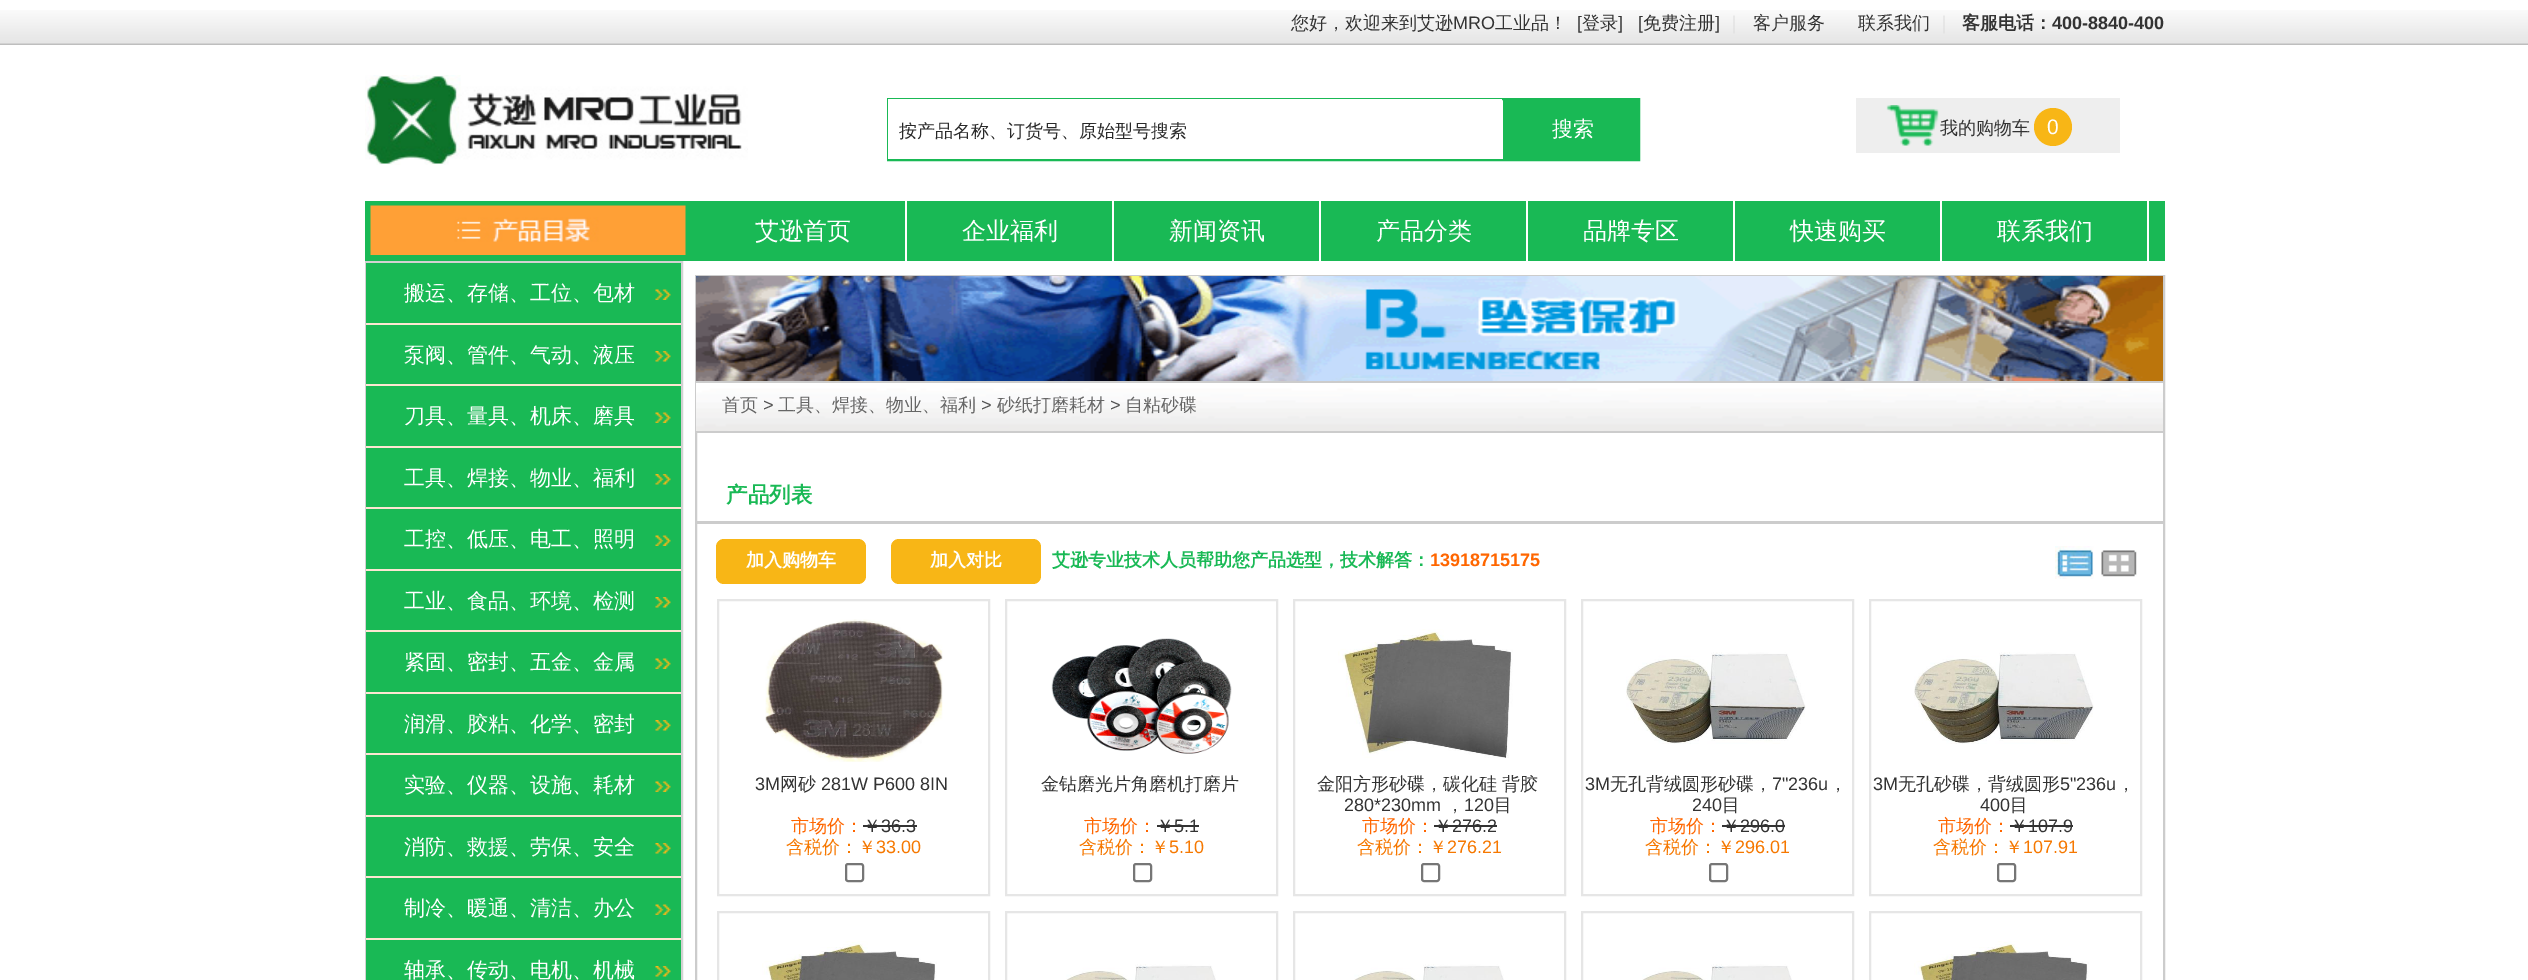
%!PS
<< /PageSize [2528 980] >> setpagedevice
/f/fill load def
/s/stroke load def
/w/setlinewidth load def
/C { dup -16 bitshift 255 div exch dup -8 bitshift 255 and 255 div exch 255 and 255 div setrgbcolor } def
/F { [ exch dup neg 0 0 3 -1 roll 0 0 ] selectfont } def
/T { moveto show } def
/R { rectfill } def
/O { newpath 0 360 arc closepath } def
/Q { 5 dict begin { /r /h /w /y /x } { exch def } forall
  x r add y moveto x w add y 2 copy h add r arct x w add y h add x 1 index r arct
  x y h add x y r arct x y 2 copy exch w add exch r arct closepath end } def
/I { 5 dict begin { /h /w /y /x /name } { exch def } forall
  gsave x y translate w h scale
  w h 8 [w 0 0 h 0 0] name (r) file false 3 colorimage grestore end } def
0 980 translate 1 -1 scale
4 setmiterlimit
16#FFFFFF C
0 0 2528 980 R
(1.rgb) 0 10 2528 35 I
/WenQuanYiZenHei-Medium 18 F
16#333333 C
(您好，欢迎来到艾逊) 1291 29 T
/LiberationSans-Regular 18 F
(MRO) 1453 29 T
/WenQuanYiZenHei-Medium 18 F
(工业品！) 1495 29 T
/LiberationSans-Regular 18 F
([) 1577 29 T
/WenQuanYiZenHei-Medium 18 F
(登录) 1582 29 T
/LiberationSans-Regular 18 F
(]) 1618 29 T
([) 1638 29 T
/WenQuanYiZenHei-Medium 18 F
(免费注册) 1643 29 T
/LiberationSans-Regular 18 F
(]) 1715 29 T
/WenQuanYiZenHei-Medium 18 F
16#DDDDDD C
(｜) 1725 29 T
16#333333 C
(客户服务) 1753 29 T
(联系我们) 1858 29 T
16#DDDDDD C
(｜) 1935 29 T
/WenQuanYiZenHei-Bold 18 F
16#333333 C
(客服电话：) 1962 29 T
/LiberationSans-Bold 18 F
(400-8840-400) 2052 29 T
(2.rgb) 365 75 383 90 I
16#19B955 C
2 w
888 99 751 61 rectstroke
16#FFFFFF C
888 99 614 60 R
/WenQuanYiZenHei-Medium 18 F
16#2A2A2A C
(按产品名称、订货号、原始型号搜索) 899 137 T
16#19B955 C
1503 100 135 59 R
/WenQuanYiZenHei-Medium 21 F
16#FFFFFF C
(搜索) 1552 136 T
16#EEEEEE C
1856 98 264 55 R
(3.rgb) 1886 105 53 41 I
/WenQuanYiZenHei-Medium 18 F
16#333333 C
(我的购物车) 1940 134 T
16#F8B616 C
2053 127 19 O f
/LiberationSans-Regular 21 F
16#FFFFFF C
(0) 2047 134 T
16#19B955 C
365 201 1800 60 R
(4.rgb) 370 205 316 50 I
16#FFFFFF C
905 201 2 60 R
/WenQuanYiZenHei-Medium 24 F
(艾逊首页) 755 239 T
1112 201 2 60 R
(企业福利) 962 239 T
1319 201 2 60 R
(新闻资讯) 1169 239 T
1526 201 2 60 R
(产品分类) 1376 239 T
1733 201 2 60 R
(品牌专区) 1583 239 T
1940 201 2 60 R
(快速购买) 1790 239 T
2147 201 2 60 R
(联系我们) 1997 239 T
16#D2D2D2 C
366 262 316 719 rectstroke
16#19B955 C
366 263 315 717 R
16#FDE6D2 C
366 323 315 2 R
/WenQuanYiZenHei-Medium 21 F
16#FFFFFF C
(搬运、存储、工位、包材) 404 300 T
(5.rgb) 655 289 16 11 I
16#FDE6D2 C
366 384 315 2 R
16#FFFFFF C
(泵阀、管件、气动、液压) 404 362 T
(6.rgb) 655 351 16 11 I
16#FDE6D2 C
366 446 315 2 R
16#FFFFFF C
(刀具、量具、机床、磨具) 404 423 T
(5.rgb) 655 412 16 11 I
16#FDE6D2 C
366 507 315 2 R
16#FFFFFF C
(工具、焊接、物业、福利) 404 485 T
(6.rgb) 655 474 16 11 I
16#FDE6D2 C
366 569 315 2 R
16#FFFFFF C
(工控、低压、电工、照明) 404 546 T
(5.rgb) 655 535 16 11 I
16#FDE6D2 C
366 630 315 2 R
16#FFFFFF C
(工业、食品、环境、检测) 404 608 T
(6.rgb) 655 597 16 11 I
16#FDE6D2 C
366 692 315 2 R
16#FFFFFF C
(紧固、密封、五金、金属) 404 669 T
(5.rgb) 655 658 16 11 I
16#FDE6D2 C
366 753 315 2 R
16#FFFFFF C
(润滑、胶粘、化学、密封) 404 731 T
(6.rgb) 655 720 16 11 I
16#FDE6D2 C
366 815 315 2 R
16#FFFFFF C
(实验、仪器、设施、耗材) 404 792 T
(5.rgb) 655 781 16 11 I
16#FDE6D2 C
366 876 315 2 R
16#FFFFFF C
(消防、救援、劳保、安全) 404 854 T
(6.rgb) 655 843 16 11 I
16#FDE6D2 C
366 938 315 2 R
16#FFFFFF C
(制冷、暖通、清洁、办公) 404 915 T
(5.rgb) 655 904 16 11 I
(轴承、传动、电机、机械) 404 977 T
(6.rgb) 655 966 16 11 I
16#CCCCCC C
696 276 1468 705 rectstroke
(7.rgb) 696 276 1467 105 I
(8.rgb) 696 383 1467 48 I
696 381 1467 2 R
696 431 1467 2 R
/WenQuanYiZenHei-Medium 18 F
16#666666 C
(首页) 722 411 T
/LiberationSans-Regular 18 F
16#535353 C
(>) 763 411 T
/WenQuanYiZenHei-Medium 18 F
16#666666 C
(工具、焊接、物业、福利) 778 411 T
/LiberationSans-Regular 18 F
16#535353 C
(>) 981 411 T
/WenQuanYiZenHei-Medium 18 F
16#666666 C
(砂纸打磨耗材) 997 411 T
/LiberationSans-Regular 18 F
16#535353 C
(>) 1110 411 T
/WenQuanYiZenHei-Medium 18 F
16#666666 C
(自粘砂碟) 1125 411 T
16#CCCCCC C
696 521 1467 3 R
/WenQuanYiZenHei-Bold 21.5 F
16#19B955 C
(产品列表) 726 502 T
16#F8B616 C
716 539 150 45 8 Q f
/WenQuanYiZenHei-Bold 18 F
16#FFFFFF C
(加入购物车) 746 566 T
16#F8B616 C
891 539 150 45 8 Q f
16#FFFFFF C
(加入对比) 930 566 T
16#19B955 C
(艾逊专业技术人员帮助您产品选型，技术解答：) 1052 566 T
/LiberationSans-Bold 18 F
16#FF6600 C
(13918715175) 1430 566 T
(9.rgb) 2055 546 39 33 I
(10.rgb) 2101 550 36 27 I
16#E6E6E6 C
718 600 271 295 rectstroke
(11.rgb) 765 619 178 143 I
/LiberationSans-Regular 18 F
16#333333 C
(3M) 755 790 T
/WenQuanYiZenHei-Medium 18 F
(网砂) 780 790 T
/LiberationSans-Regular 18 F
(281W P600 8IN) 821 790 T
/WenQuanYiZenHei-Medium 18 F
16#FF6600 C
(市场价：) 791 832 T
16#333333 C
(￥) 863 832 T
/LiberationSans-Regular 18 F
(36.3) 881 832 T
863 825 54 2 R
/WenQuanYiZenHei-Medium 18 F
16#F67800 C
(含税价：￥) 786 853 T
/LiberationSans-Regular 18 F
(33.00) 876 853 T
16#767676 C
846 864 17 17 2 Q s
16#E6E6E6 C
1006 600 271 295 rectstroke
(12.rgb) 1051 638 181 116 I
/WenQuanYiZenHei-Medium 18 F
16#333333 C
(金钻磨光片角磨机打磨片) 1041 790 T
16#FF6600 C
(市场价：) 1084 832 T
16#333333 C
(￥) 1156 832 T
/LiberationSans-Regular 18 F
(5.1) 1174 832 T
1157 825 42 2 R
/WenQuanYiZenHei-Medium 18 F
16#F67800 C
(含税价：￥) 1079 853 T
/LiberationSans-Regular 18 F
(5.10) 1169 853 T
16#767676 C
1134 864 17 17 2 Q s
16#E6E6E6 C
1294 600 271 295 rectstroke
(13.rgb) 1338 629 175 129 I
/WenQuanYiZenHei-Medium 18 F
16#333333 C
(金阳方形砂碟，碳化硅 背胶) 1317 790 T
/LiberationSans-Regular 18 F
(280*230mm) 1344 811 T
/WenQuanYiZenHei-Medium 18 F
(，) 1446 811 T
/LiberationSans-Regular 18 F
(120) 1464 811 T
/WenQuanYiZenHei-Medium 18 F
(目) 1494 811 T
16#FF6600 C
(市场价：) 1362 832 T
16#333333 C
(￥) 1434 832 T
/LiberationSans-Regular 18 F
(276.2) 1452 832 T
1434 825 63 2 R
/WenQuanYiZenHei-Medium 18 F
16#F67800 C
(含税价：￥) 1357 853 T
/LiberationSans-Regular 18 F
(276.21) 1447 853 T
16#767676 C
1422 864 17 17 2 Q s
16#E6E6E6 C
1582 600 271 295 rectstroke
(14.rgb) 1626 652 180 92 I
16#333333 C
(3M) 1585 790 T
/WenQuanYiZenHei-Medium 18 F
(无孔背绒圆形砂碟，) 1610 790 T
/LiberationSans-Regular 18 F
(7"236u) 1772 790 T
/WenQuanYiZenHei-Medium 18 F
(，) 1829 790 T
/LiberationSans-Regular 18 F
(240) 1692 811 T
/WenQuanYiZenHei-Medium 18 F
(目) 1722 811 T
16#FF6600 C
(市场价：) 1650 832 T
16#333333 C
(￥) 1722 832 T
/LiberationSans-Regular 18 F
(296.0) 1740 832 T
1722 825 63 2 R
/WenQuanYiZenHei-Medium 18 F
16#F67800 C
(含税价：￥) 1645 853 T
/LiberationSans-Regular 18 F
(296.01) 1735 853 T
16#767676 C
1710 864 17 17 2 Q s
16#E6E6E6 C
1870 600 271 295 rectstroke
(15.rgb) 1914 652 180 92 I
16#333333 C
(3M) 1873 790 T
/WenQuanYiZenHei-Medium 18 F
(无孔砂碟，背绒圆形) 1898 790 T
/LiberationSans-Regular 18 F
(5"236u) 2060 790 T
/WenQuanYiZenHei-Medium 18 F
(，) 2117 790 T
/LiberationSans-Regular 18 F
(400) 1980 811 T
/WenQuanYiZenHei-Medium 18 F
(目) 2010 811 T
16#FF6600 C
(市场价：) 1938 832 T
16#333333 C
(￥) 2010 832 T
/LiberationSans-Regular 18 F
(107.9) 2028 832 T
2010 825 63 2 R
/WenQuanYiZenHei-Medium 18 F
16#F67800 C
(含税价：￥) 1933 853 T
/LiberationSans-Regular 18 F
(107.91) 2023 853 T
16#767676 C
1998 864 17 17 2 Q s
16#E6E6E6 C
718 912 271 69 rectstroke
(16.rgb) 762 941 175 39 I
1006 912 271 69 rectstroke
(17.rgb) 1066 964 150 16 I
1294 912 271 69 rectstroke
(18.rgb) 1354 964 150 16 I
1582 912 271 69 rectstroke
(19.rgb) 1642 964 150 16 I
1870 912 271 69 rectstroke
(16.rgb) 1914 941 175 39 I
showpage
